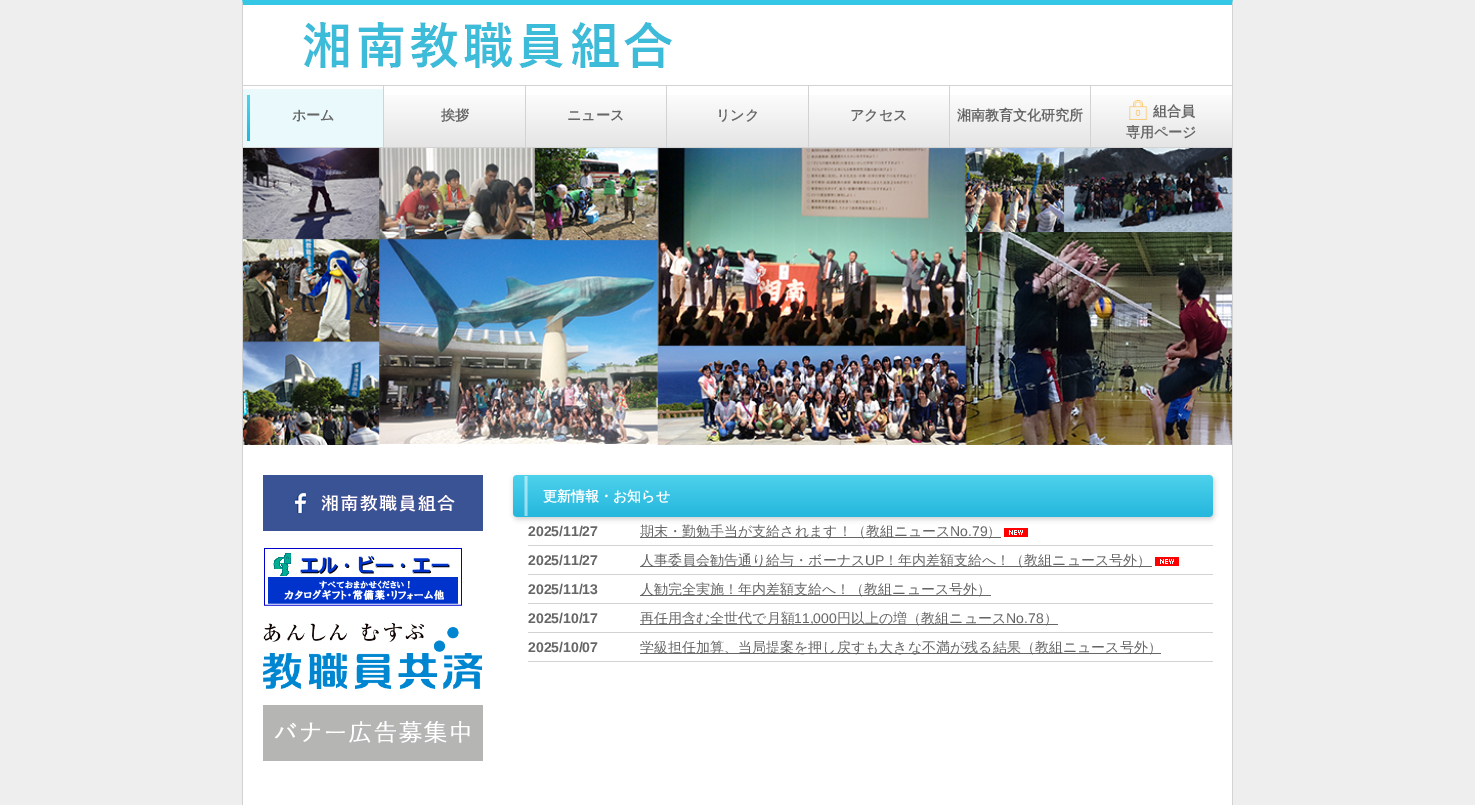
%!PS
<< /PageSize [1475 805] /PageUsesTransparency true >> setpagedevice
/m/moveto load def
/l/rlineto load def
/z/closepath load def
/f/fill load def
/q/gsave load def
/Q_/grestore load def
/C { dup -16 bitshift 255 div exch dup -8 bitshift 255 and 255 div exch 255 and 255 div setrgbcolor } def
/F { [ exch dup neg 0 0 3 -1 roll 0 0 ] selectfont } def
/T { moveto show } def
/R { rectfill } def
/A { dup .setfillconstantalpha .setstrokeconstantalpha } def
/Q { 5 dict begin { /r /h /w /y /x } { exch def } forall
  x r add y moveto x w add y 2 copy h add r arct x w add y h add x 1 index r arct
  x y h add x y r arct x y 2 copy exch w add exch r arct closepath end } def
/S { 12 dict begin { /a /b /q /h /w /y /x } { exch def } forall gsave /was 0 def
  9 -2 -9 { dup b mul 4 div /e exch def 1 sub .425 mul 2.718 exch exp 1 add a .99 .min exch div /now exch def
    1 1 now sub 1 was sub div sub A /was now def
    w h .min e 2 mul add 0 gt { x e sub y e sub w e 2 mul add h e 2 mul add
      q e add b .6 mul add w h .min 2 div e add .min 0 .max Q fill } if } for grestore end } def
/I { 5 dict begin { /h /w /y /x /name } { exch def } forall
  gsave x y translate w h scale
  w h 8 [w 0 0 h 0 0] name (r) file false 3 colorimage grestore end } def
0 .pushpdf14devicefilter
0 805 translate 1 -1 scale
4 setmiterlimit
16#EEEEEE C
0 0 1475 805 R
16#FFFFFF C
243 5 989 800 R
16#34C7E6 C
242 0 m 991 0 l -1 5 l -989 0 l z f
16#D2D2D2 C
1233 0 m 0 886 l -1 -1 l 0 -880 l z f
242 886 m 0 -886 l 1 5 l 0 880 l z f
(1.rgb) 303 22 369 46 I
243 85 989 1 R
243 147 989 1 R
16#EAF9FC C
243 89 140 58 R
(2.rgb) 247 95 3 46 I
/WenQuanYiZenHei-Bold 14 F
16#666666 C
(ホーム) 292 120 T
16#D2D2D2 C
383 85 1 63 R
q 384 95 m 141 0 l 0 52 l -141 0 l z clip newpath
<< /ShadingType 2 /ColorSpace /DeviceRGB /Coords [455 89 455 147] /Extend [true true] /Function << /FunctionType 2 /Domain [0 1] /C0 [1 1 1] /C1 [.898 .898 .898] /N 1 >> >> shfill Q_
16#666666 C
(挨拶) 441 120 T
16#D2D2D2 C
525 85 1 63 R
q 526 95 m 140 0 l 0 52 l -140 0 l z clip newpath
<< /ShadingType 2 /ColorSpace /DeviceRGB /Coords [596 89 596 147] /Extend [true true] /Function << /FunctionType 2 /Domain [0 1] /C0 [1 1 1] /C1 [.898 .898 .898] /N 1 >> >> shfill Q_
16#666666 C
(ニュース) 567 120 T
16#D2D2D2 C
666 85 1 63 R
q 667 95 m 141 0 l 0 52 l -141 0 l z clip newpath
<< /ShadingType 2 /ColorSpace /DeviceRGB /Coords [738 89 738 147] /Extend [true true] /Function << /FunctionType 2 /Domain [0 1] /C0 [1 1 1] /C1 [.898 .898 .898] /N 1 >> >> shfill Q_
16#666666 C
(リンク) 716 120 T
16#D2D2D2 C
808 85 1 63 R
q 809 95 m 140 0 l 0 52 l -140 0 l z clip newpath
<< /ShadingType 2 /ColorSpace /DeviceRGB /Coords [879 89 879 147] /Extend [true true] /Function << /FunctionType 2 /Domain [0 1] /C0 [1 1 1] /C1 [.898 .898 .898] /N 1 >> >> shfill Q_
16#666666 C
(アクセス) 850 120 T
16#D2D2D2 C
949 85 1 63 R
q 950 95 m 140 0 l 0 52 l -140 0 l z clip newpath
<< /ShadingType 2 /ColorSpace /DeviceRGB /Coords [1020 89 1020 147] /Extend [true true] /Function << /FunctionType 2 /Domain [0 1] /C0 [1 1 1] /C1 [.898 .898 .898] /N 1 >> >> shfill Q_
16#666666 C
(湘南教育文化研究所) 957 120 T
16#D2D2D2 C
1090 85 1 63 R
q 1091 95 m 141 0 l 0 52 l -141 0 l z clip newpath
<< /ShadingType 2 /ColorSpace /DeviceRGB /Coords [1162 89 1162 147] /Extend [true true] /Function << /FunctionType 2 /Domain [0 1] /C0 [1 1 1] /C1 [.898 .898 .898] /N 1 >> >> shfill Q_
(3.rgb) 1129 100 19 20 I
16#666666 C
(組合員) 1153 116 T
(専用ページ) 1126 137 T
(4.rgb) 243 148 989 297 I
(5.rgb) 263 475 220 56 I
(6.rgb) 264 548 198 58 I
(7.rgb) 263 623 219 66 I
(8.rgb) 263 705 220 56 I
16#CCCCCC C
514 477 700 42 4 2.5 1 S
(9.rgb) 513 475 700 42 I
16#FFFFFF C
(更新情報・お知らせ) 543 501 T
/LiberationSans-Bold 14 F
16#666666 C
(2025/11/27) 528 536 T
16#D2D2D2 C
528 545 685 1 R
16#666666 C
640 537 361 1 R
/WenQuanYiZenHei-Medium 14 F
(期末・勤勉手当が支給されます！（教組ニュース) 640 536 T
/LiberationSans-Regular 14 F
(No.79) 950 536 T
/WenQuanYiZenHei-Medium 14 F
(）) 987 536 T
(10.rgb) 1004 528 24 9 I
/LiberationSans-Bold 14 F
(2025/11/27) 528 565 T
16#D2D2D2 C
528 574 685 1 R
16#666666 C
640 566 512 1 R
/WenQuanYiZenHei-Medium 14 F
(人事委員会勧告通り給与・ボーナス) 640 565 T
/LiberationSans-Regular 14 F
(UP) 865 565 T
/WenQuanYiZenHei-Medium 14 F
(！年内差額支給へ！（教組ニュース号外）) 884 565 T
(10.rgb) 1155 557 24 9 I
/LiberationSans-Bold 14 F
(2025/11/13) 528 594 T
16#D2D2D2 C
528 603 685 1 R
16#666666 C
640 595 351 1 R
/WenQuanYiZenHei-Medium 14 F
(人勧完全実施！年内差額支給へ！（教組ニュース号外）) 640 594 T
/LiberationSans-Bold 14 F
(2025/10/17) 528 623 T
16#D2D2D2 C
528 632 685 1 R
16#666666 C
640 624 418 1 R
/WenQuanYiZenHei-Medium 14 F
(再任用含む全世代で月額) 640 623 T
/LiberationSans-Regular 14 F
(11,000) 794 623 T
/WenQuanYiZenHei-Medium 14 F
(円以上の増（教組ニュース) 837 623 T
/LiberationSans-Regular 14 F
(No.78) 1006 623 T
/WenQuanYiZenHei-Medium 14 F
(）) 1044 623 T
/LiberationSans-Bold 14 F
(2025/10/07) 528 652 T
16#D2D2D2 C
528 661 685 1 R
16#666666 C
640 653 521 1 R
/WenQuanYiZenHei-Medium 14 F
(学級担任加算、当局提案を押し戻すも大きな不満が残る結果（教組ニュース号外）) 640 652 T
.poppdf14devicefilter showpage
